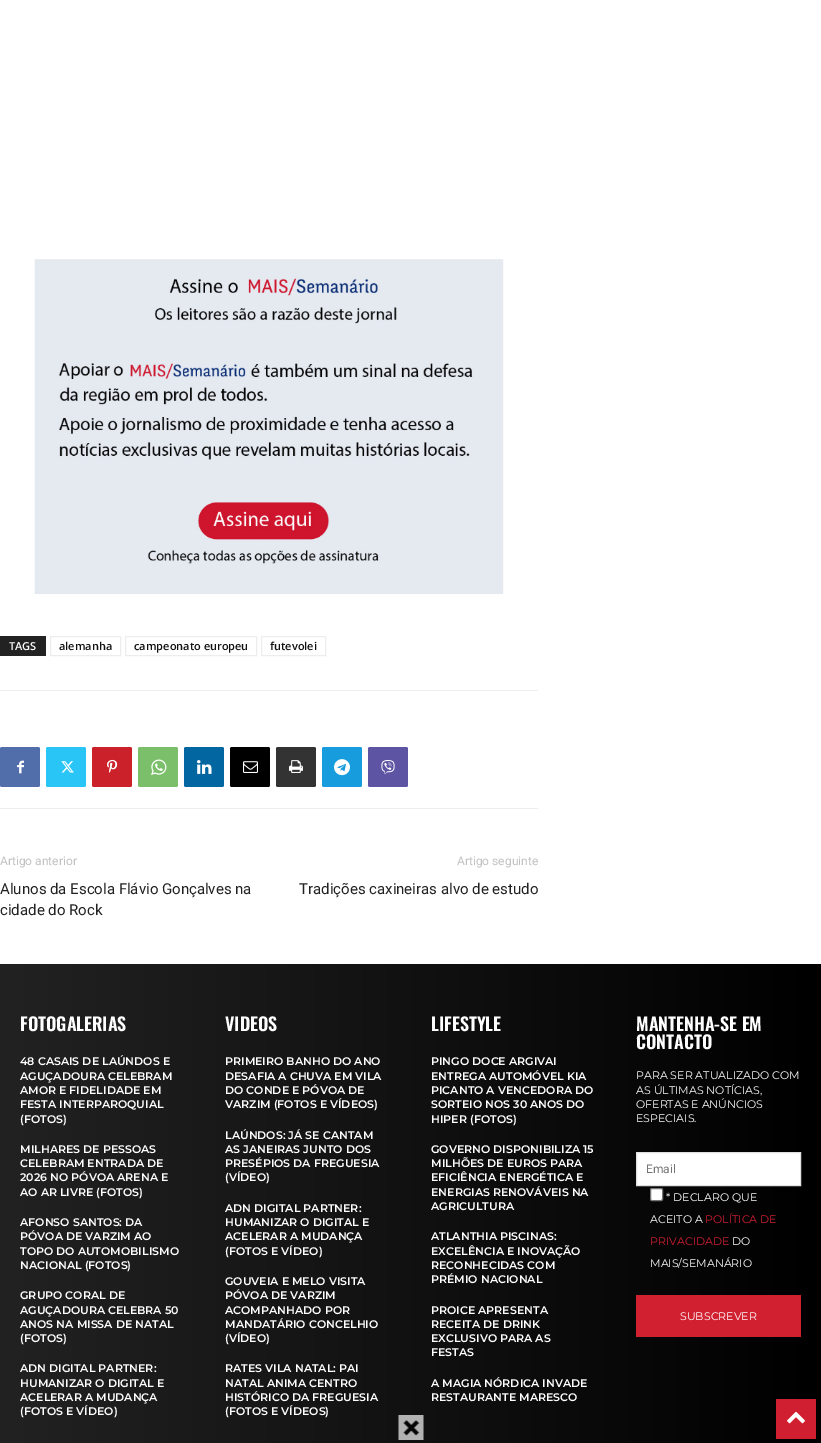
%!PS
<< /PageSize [821 1443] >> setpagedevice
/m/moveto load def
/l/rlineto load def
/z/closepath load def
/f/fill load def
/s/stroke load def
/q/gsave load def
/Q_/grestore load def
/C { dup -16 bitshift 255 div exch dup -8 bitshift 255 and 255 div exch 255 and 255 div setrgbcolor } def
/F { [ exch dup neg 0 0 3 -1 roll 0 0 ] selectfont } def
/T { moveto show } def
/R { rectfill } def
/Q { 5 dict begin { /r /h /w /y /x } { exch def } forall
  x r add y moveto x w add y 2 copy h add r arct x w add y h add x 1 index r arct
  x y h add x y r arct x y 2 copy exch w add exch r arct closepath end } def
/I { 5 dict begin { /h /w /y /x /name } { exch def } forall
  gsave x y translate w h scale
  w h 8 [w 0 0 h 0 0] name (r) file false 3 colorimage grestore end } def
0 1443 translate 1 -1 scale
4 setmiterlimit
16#FFFFFF C
0 0 821 1443 R
(1.rgb) 34 259 470 335 I
16#222222 C
0 636 46 20 R
/OpenSans-SemiBold 11 F
16#FFFFFF C
(TAGS) 9 650 T
16#EDEDED C
50.5 636.5 70 19 rectstroke
16#111111 C
(alemanha) 59 650 T
16#EDEDED C
125.5 636.5 131 19 rectstroke
16#111111 C
(campeonato europeu) 134 650 T
16#EDEDED C
261.5 636.5 64 19 rectstroke
16#111111 C
(futevolei) 270 650 T
16#EDEDED C
0 690 538 1 R
0 808 538 1 R
16#516EAB C
0 747 40 40 2 Q f
(2.rgb) 17 760 7 14 I
16#29C5F6 C
46 747 40 40 2 Q f
(3.rgb) 61 761 13 12 I
16#CA212A C
92 747 40 40 2 Q f
(4.rgb) 107 759 11 14 I
16#7BBF6A C
138 747 40 40 2 Q f
(5.rgb) 151 759 16 16 I
16#0266A0 C
184 747 40 40 2 Q f
(6.rgb) 197 760 15 14 I
16#000000 C
230 747 40 40 2 Q f
(7.rgb) 243 761 15 12 I
16#333333 C
276 747 40 40 2 Q f
(8.rgb) 289 760 14 13 I
16#179CDE C
322 747 40 40 2 Q f
(9.rgb) 334 759 16 17 I
16#5D54A4 C
368 747 40 40 2 Q f
(10.rgb) 381 760 14 14 I
/Roboto-Regular 12 F
16#C1C1C1 C
(Artigo anterior) 0 865 T
/Roboto-Regular 15 F
16#222222 C
(Alunos da Escola Flávio Gonçalves na) 0 894 T
(cidade do Rock) 0 915 T
/Roboto-Regular 12 F
16#C1C1C1 C
(Artigo seguinte) 457 865 T
/Roboto-Regular 15 F
16#222222 C
(Tradições caxineiras alvo de estudo) 299 894 T
q 0 964 m 821 0 l 0 479 l -821 0 l z clip newpath
<< /ShadingType 2 /ColorSpace /DeviceRGB /Coords [821 1324 0 1324] /Extend [true true] /Function << /FunctionType 2 /Domain [0 1] /C0 [0 0 0] /C1 [.133 .133 .133] /N 1 >> >> shfill Q_
/Oswald-SemiBold 18 F
16#FFFFFF C
(FOTOGALERIAS) 20 1031 T
/Montserrat-SemiBold 11 F
(48 CASAIS DE LAÚNDOS E) 20 1065 T
(AGUÇADOURA CELEBRAM) 20 1080 T
(AMOR E FIDELIDADE EM) 20 1094 T
(FESTA INTERPAROQUIAL) 20 1108 T
(\(FOTOS\)) 20 1123 T
(MILHARES DE PESSOAS) 20 1153 T
(CELEBRAM ENTRADA DE) 20 1167 T
(2026 NO PÓVOA ARENA E) 20 1181 T
(AO AR LIVRE \(FOTOS\)) 20 1196 T
(AFONSO SANTOS: DA) 20 1226 T
(PÓVOA DE VARZIM AO) 20 1240 T
(TOPO DO AUTOMOBILISMO) 20 1255 T
(NACIONAL \(FOTOS\)) 20 1269 T
(GRUPO CORAL DE) 20 1299 T
(AGUÇADOURA CELEBRA 50) 20 1314 T
(ANOS NA MISSA DE NATAL) 20 1328 T
(\(FOTOS\)) 20 1342 T
(ADN DIGITAL PARTNER:) 20 1372 T
(HUMANIZAR O DIGITAL E) 20 1387 T
(ACELERAR A MUDANÇA) 20 1401 T
(\(FOTOS E VÍDEO\)) 20 1415 T
/Oswald-SemiBold 18 F
(VIDEOS) 225 1031 T
/Montserrat-SemiBold 11 F
(PRIMEIRO BANHO DO ANO) 225 1065 T
(DESAFIA A CHUVA EM VILA) 225 1080 T
(DO CONDE E PÓVOA DE) 225 1094 T
(VARZIM \(FOTOS E VÍDEOS\)) 225 1108 T
(LAÚNDOS: JÁ SE CANTAM) 225 1139 T
(AS JANEIRAS JUNTO DOS) 225 1153 T
(PRESÉPIOS DA FREGUESIA) 225 1167 T
(\(VÍDEO\)) 225 1181 T
(ADN DIGITAL PARTNER:) 225 1212 T
(HUMANIZAR O DIGITAL E) 225 1226 T
(ACELERAR A MUDANÇA) 225 1240 T
(\(FOTOS E VÍDEO\)) 225 1255 T
(GOUVEIA E MELO VISITA) 225 1285 T
(PÓVOA DE VARZIM) 225 1299 T
(ACOMPANHADO POR) 225 1314 T
(MANDATÁRIO CONCELHIO) 225 1328 T
(\(VÍDEO\)) 225 1342 T
(RATES VILA NATAL: PAI) 225 1372 T
(NATAL ANIMA CENTRO) 225 1387 T
(HISTÓRICO DA FREGUESIA) 225 1401 T
(\(FOTOS E VÍDEOS\)) 225 1415 T
/Oswald-SemiBold 18 F
(LIFESTYLE) 431 1031 T
/Montserrat-SemiBold 11 F
(PINGO DOCE ARGIVAI) 431 1065 T
(ENTREGA AUTOMÓVEL KIA) 431 1080 T
(PICANTO A VENCEDORA DO) 431 1094 T
(SORTEIO NOS 30 ANOS DO) 431 1108 T
(HIPER \(FOTOS\)) 431 1123 T
(GOVERNO DISPONIBILIZA 15) 431 1153 T
(MILHÕES DE EUROS PARA) 431 1167 T
(EFICIÊNCIA ENERGÉTICA E) 431 1181 T
(ENERGIAS RENOVÁVEIS NA) 431 1196 T
(AGRICULTURA) 431 1210 T
(ATLANTHIA PISCINAS:) 431 1240 T
(EXCELÊNCIA E INOVAÇÃO) 431 1255 T
(RECONHECIDAS COM) 431 1269 T
(PRÉMIO NACIONAL) 431 1283 T
(PROICE APRESENTA) 431 1314 T
(RECEITA DE DRINK) 431 1328 T
(EXCLUSIVO PARA AS) 431 1342 T
(FESTAS) 431 1356 T
(A MAGIA NÓRDICA INVADE) 431 1387 T
(RESTAURANTE MARESCO) 431 1401 T
/Oswald-SemiBold 18 F
(MANTENHA-SE EM) 636 1031 T
(CONTACTO) 636 1049 T
/Montserrat-Regular 11 F
(PARA SER ATUALIZADO COM) 636 1079 T
(AS ÚLTIMAS NOTÍCIAS,) 636 1094 T
(OFERTAS E ANÚNCIOS) 636 1108 T
(ESPECIAIS.) 636 1122 T
636.5 1152.5 m 164 0 l 0 33 l -164 0 l z q f Q_
16#E1E1E1 C
s
/Roboto-Regular 12 F
16#757575 C
(Email) 646 1173 T
16#FFFFFF C
650.5 1188.5 12 12 1.5 Q q f Q_
16#767676 C
s
/Montserrat-Regular 11 F
16#FFFFFF C
(* DECLARO QUE) 666 1201 T
(ACEITO A) 650 1223 T
16#D01F30 C
(POLÍTICA DE) 705 1223 T
(PRIVACIDADE) 650 1245 T
16#FFFFFF C
(DO) 732 1245 T
(MAIS/SEMANÁRIO) 650 1267 T
16#D12030 C
636 1295 165 42 R
16#FFFFFF C
(SUBSCREVER) 680 1320 T
(11.rgb) 398 1415 26 25 I
16#D01F30 C
776 1399 40 40 R
(12.rgb) 787 1411 18 13 I
showpage
